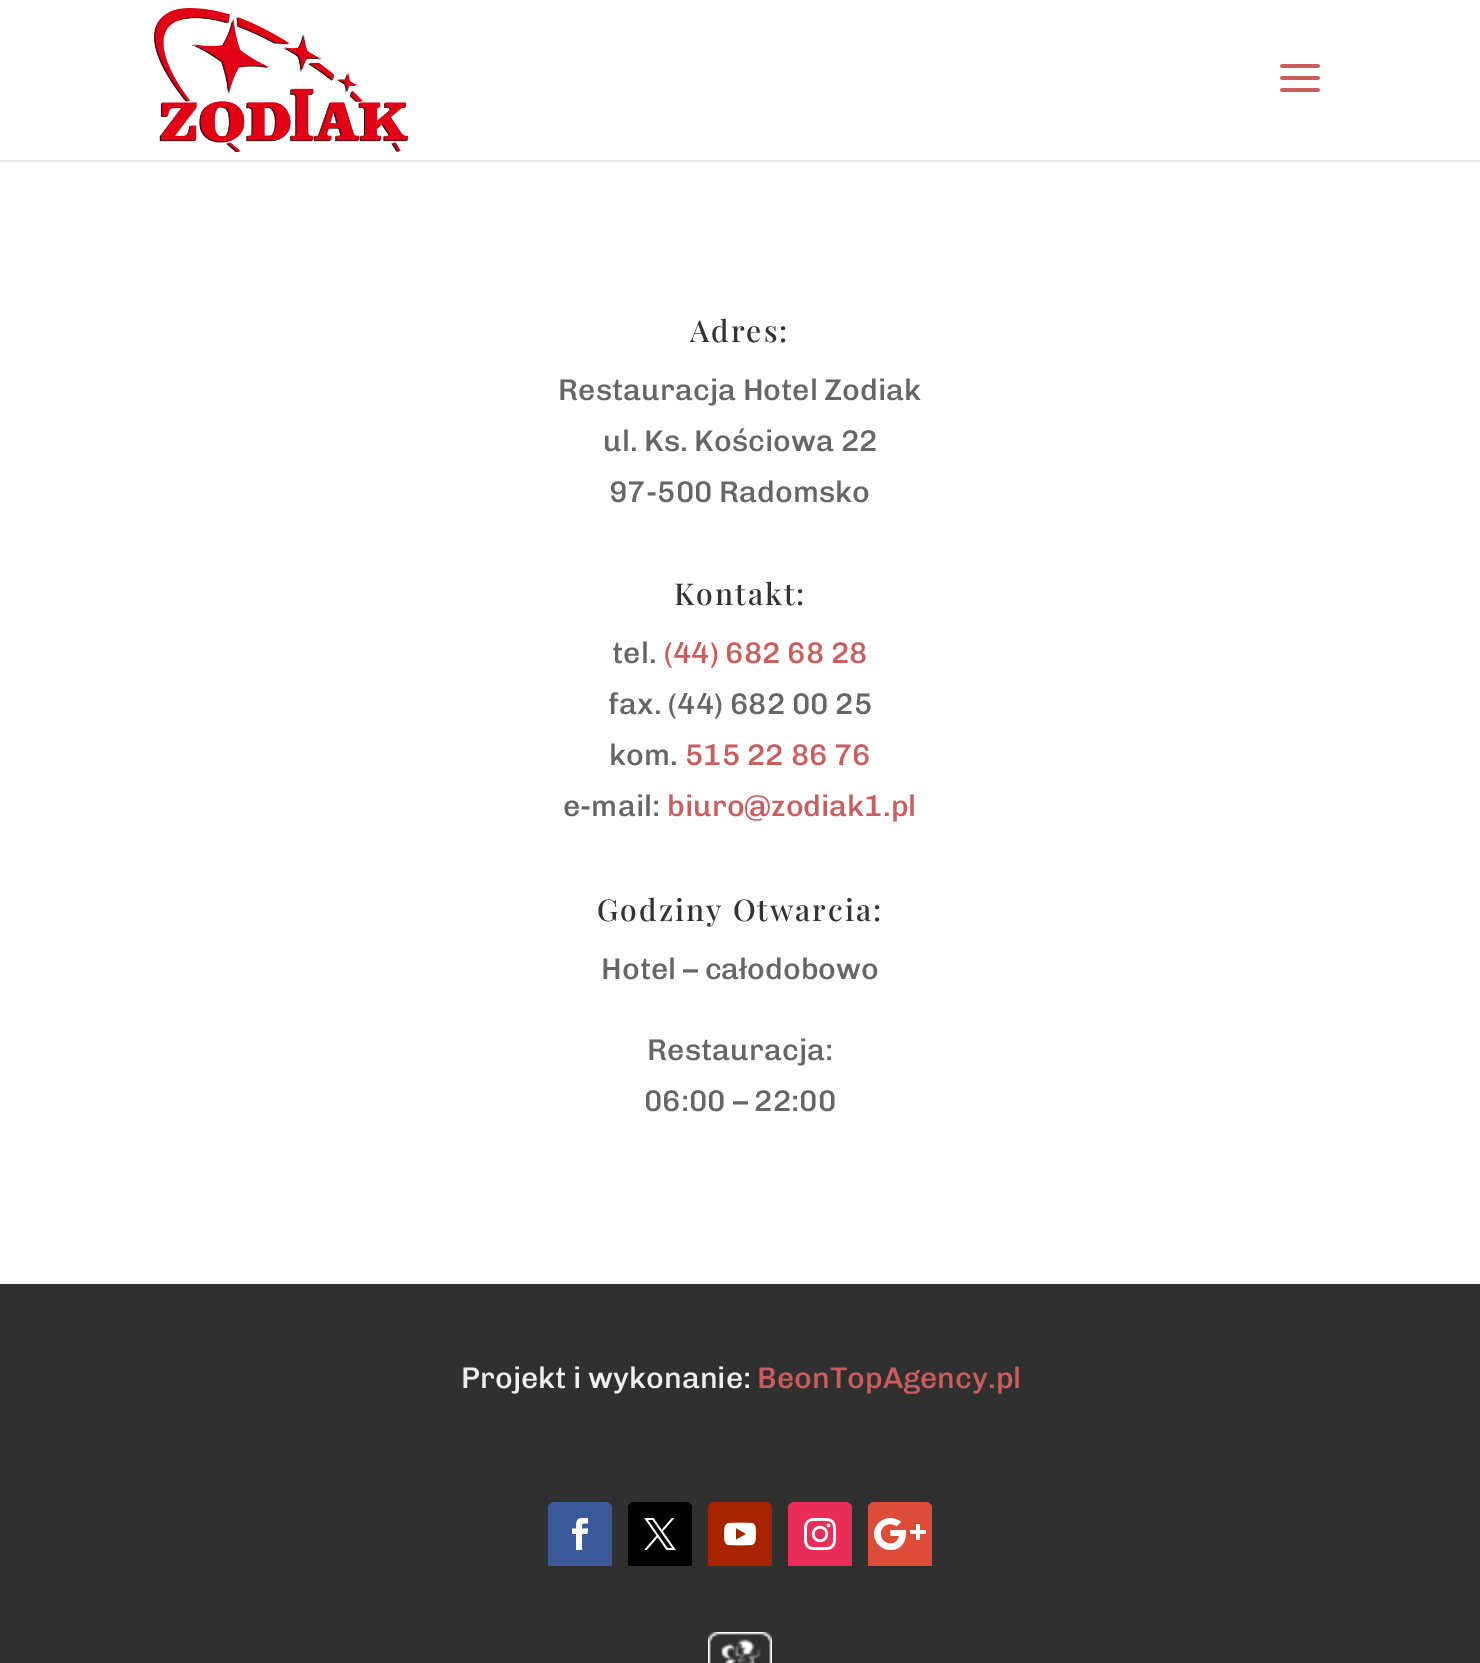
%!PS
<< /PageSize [1480 1663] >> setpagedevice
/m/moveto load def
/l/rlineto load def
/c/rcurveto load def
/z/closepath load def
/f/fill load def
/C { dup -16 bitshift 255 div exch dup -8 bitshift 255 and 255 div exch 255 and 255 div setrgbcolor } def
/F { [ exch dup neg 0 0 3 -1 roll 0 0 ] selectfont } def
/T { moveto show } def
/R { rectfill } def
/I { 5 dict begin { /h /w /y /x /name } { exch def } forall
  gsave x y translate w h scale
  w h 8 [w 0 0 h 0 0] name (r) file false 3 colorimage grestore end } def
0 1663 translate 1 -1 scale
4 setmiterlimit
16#FFFFFF C
0 0 1480 1663 R
16#E6E6E6 C
0 160 1480 2 R
(1.rgb) 154 8 254 144 I
(2.rgb) 1280 64 40 28 I
/PlayfairDisplay-Medium 30 F
16#333333 C
690 342 m 2 0 (Adres:) ashow
/Chivo-Medium 30 F
16#666666 C
(Restauracja Hotel Zodiak) 558 400 T
(ul. Ks. Kościowa 22) 603 451 T
(97-500 Radomsko) 609 502 T
/PlayfairDisplay-Medium 30 F
16#333333 C
674 605 m 2 0 (Kontakt:) ashow
/Chivo-Medium 30 F
16#666666 C
(tel.) 612 663 T
16#CD5C5C C
(\(44\) 682 68 28) 664 663 T
16#666666 C
(fax. \(44\) 682 00 25) 608 714 T
(kom.) 609 765 T
16#CD5C5C C
(515 22 86 76) 685 765 T
16#666666 C
(e-mail:) 563 816 T
16#CD5C5C C
(biuro@zodiak1.pl) 667 816 T
/PlayfairDisplay-Medium 30 F
16#333333 C
597 921 m 2 0 (Godziny Otwarcia:) ashow
/Chivo-Medium 30 F
16#666666 C
(Hotel – całodobowo) 601 979 T
(Restauracja:) 647 1060 T
(06:00 – 22:00) 644 1111 T
16#303030 C
0 1284 1480 379 R
16#EFEFEF C
(Projekt i wykonanie:) 461 1388 T
16#CD5C5C C
(BeonTopAgency.pl) 757 1388 T
16#3B5998 C
554 1502 m 52 0 l 3 0 6 3 6 6 c 0 58 l -64 0 l 0 -58 l 0 -3 3 -6 6 -6 c z f
(3.rgb) 572 1518 17 32 I
16#000000 C
634 1502 m 52 0 l 3 0 6 3 6 6 c 0 58 l -64 0 l 0 -58 l 0 -3 3 -6 6 -6 c z f
(4.rgb) 644 1518 32 32 I
16#A82400 C
714 1502 m 52 0 l 3 0 6 3 6 6 c 0 58 l -64 0 l 0 -58 l 0 -3 3 -6 6 -6 c z f
(5.rgb) 724 1522 32 24 I
16#EA2C59 C
794 1502 m 52 0 l 3 0 6 3 6 6 c 0 58 l -64 0 l 0 -58 l 0 -3 3 -6 6 -6 c z f
(6.rgb) 804 1518 32 32 I
16#DD4B39 C
874 1502 m 52 0 l 3 0 6 3 6 6 c 0 58 l -64 0 l 0 -58 l 0 -3 3 -6 6 -6 c z f
(7.rgb) 874 1518 52 32 I
(8.rgb) 708 1632 64 31 I
showpage
